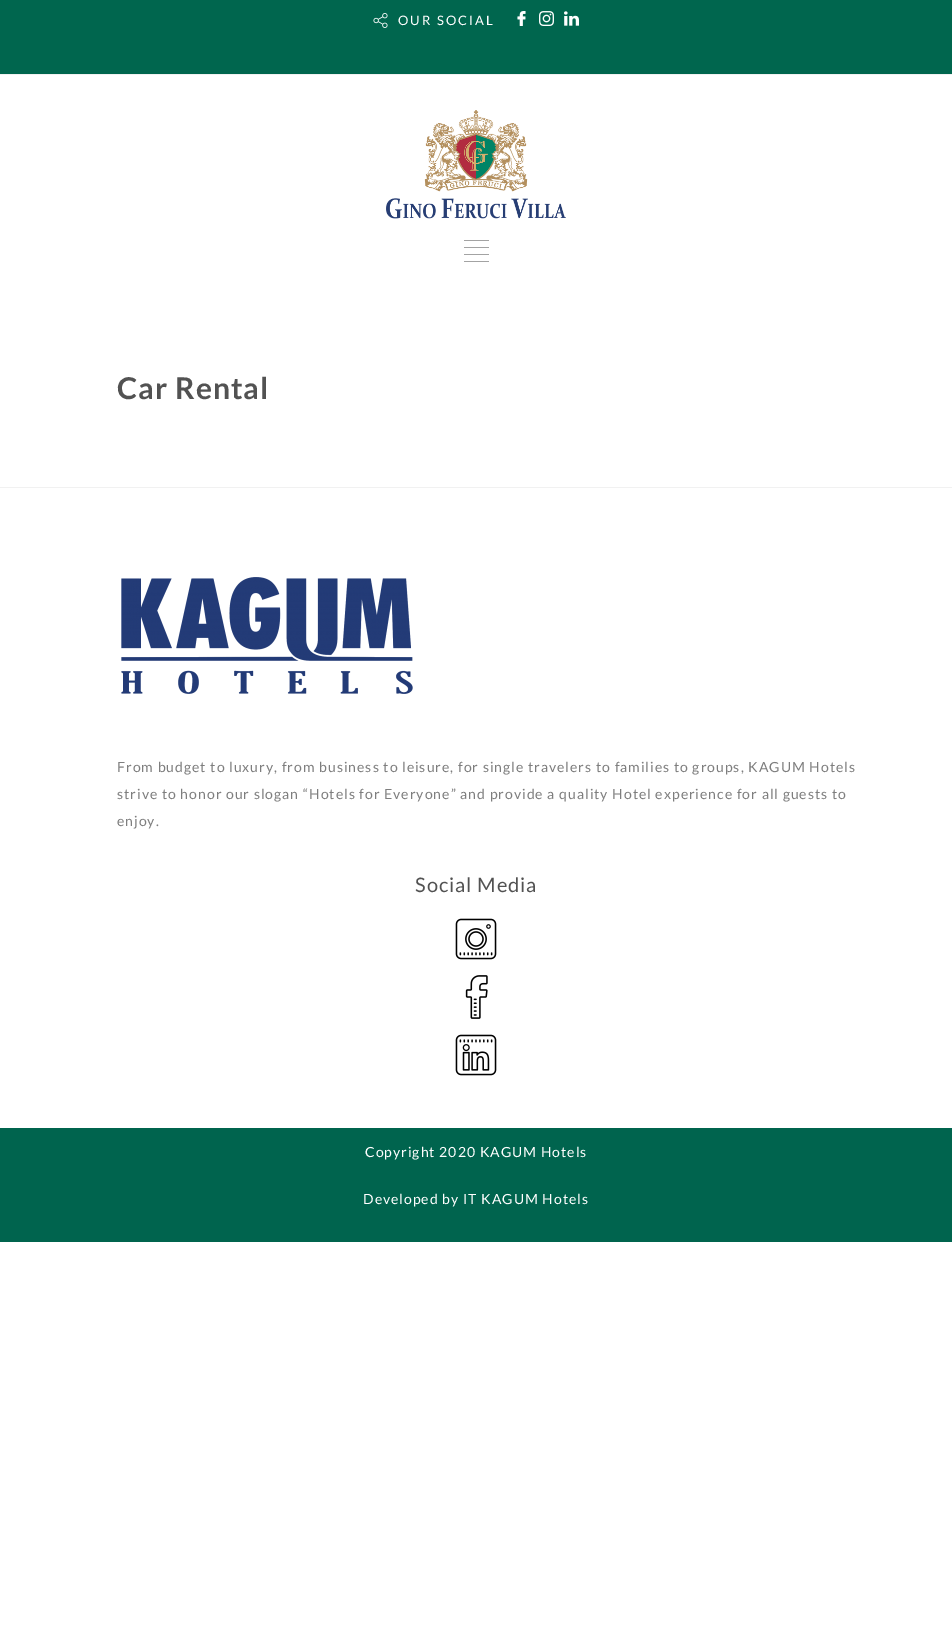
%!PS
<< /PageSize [952 1640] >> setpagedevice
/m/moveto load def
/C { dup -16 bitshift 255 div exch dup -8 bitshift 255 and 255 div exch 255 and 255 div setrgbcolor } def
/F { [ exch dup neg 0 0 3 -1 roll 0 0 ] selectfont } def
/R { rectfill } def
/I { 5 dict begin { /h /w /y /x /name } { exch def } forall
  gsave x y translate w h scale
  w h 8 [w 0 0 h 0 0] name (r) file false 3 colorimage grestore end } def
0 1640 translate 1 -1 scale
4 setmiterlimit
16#FFFFFF C
0 0 952 1640 R
16#00664E C
0 0 952 74 R
(1.rgb) 373 13 15 15 I
/Lato-Regular 13 F
16#FFFFFF C
398 25 m 2 0 (OUR SOCIAL) ashow
(2.rgb) 517 11 9 15 I
(3.rgb) 539 11 15 15 I
(4.rgb) 564 11 15 15 I
16#F1F1F1 C
0 74 952 1 R
(5.rgb) 386 110 180 109 I
16#A3A3A3 C
464 240 25 1 R
464 247 25 1 R
464 254 25 1 R
464 261 25 1 R
/Lato-Bold 30 F
16#525252 C
117 399 m 1 0 (Car Rental) ashow
16#F1F1F1 C
0 487 952 1 R
(6.rgb) 121 577 292 117 I
/Lato-Regular 14 F
16#7E7E7E C
117 772 m 1 0 (From budget to luxury, from business to leisure, for single travelers to families to groups, KAGUM Hotels) ashow
117 799 m 1 0 (strive to honor our slogan “Hotels for Everyone” and provide a quality Hotel experience for all guests to) ashow
117 826 m 1 0 (enjoy.) ashow
/Lato-Regular 20 F
16#525252 C
415 892 m 1 0 (Social Media) ashow
(7.rgb) 455 918 42 42 I
(8.rgb) 465 975 23 44 I
(9.rgb) 455 1034 42 42 I
16#00644E C
0 1128 952 114 R
/Lato-Regular 14 F
16#FFFFFF C
365 1157 m 1 0 (Copyright 2020 KAGUM Hotels) ashow
363 1204 m 1 0 (Developed by IT KAGUM Hotels) ashow
showpage
